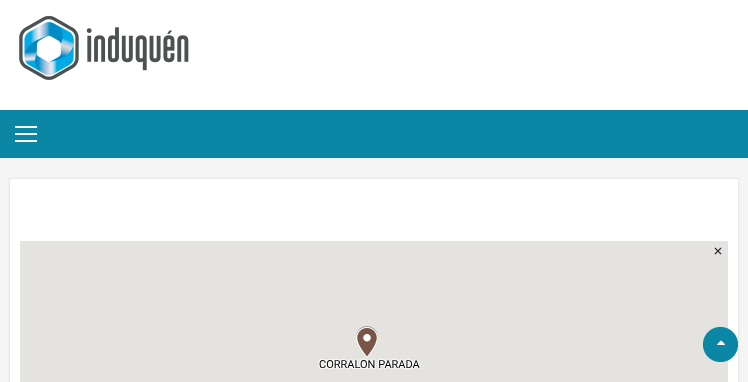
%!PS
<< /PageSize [748 382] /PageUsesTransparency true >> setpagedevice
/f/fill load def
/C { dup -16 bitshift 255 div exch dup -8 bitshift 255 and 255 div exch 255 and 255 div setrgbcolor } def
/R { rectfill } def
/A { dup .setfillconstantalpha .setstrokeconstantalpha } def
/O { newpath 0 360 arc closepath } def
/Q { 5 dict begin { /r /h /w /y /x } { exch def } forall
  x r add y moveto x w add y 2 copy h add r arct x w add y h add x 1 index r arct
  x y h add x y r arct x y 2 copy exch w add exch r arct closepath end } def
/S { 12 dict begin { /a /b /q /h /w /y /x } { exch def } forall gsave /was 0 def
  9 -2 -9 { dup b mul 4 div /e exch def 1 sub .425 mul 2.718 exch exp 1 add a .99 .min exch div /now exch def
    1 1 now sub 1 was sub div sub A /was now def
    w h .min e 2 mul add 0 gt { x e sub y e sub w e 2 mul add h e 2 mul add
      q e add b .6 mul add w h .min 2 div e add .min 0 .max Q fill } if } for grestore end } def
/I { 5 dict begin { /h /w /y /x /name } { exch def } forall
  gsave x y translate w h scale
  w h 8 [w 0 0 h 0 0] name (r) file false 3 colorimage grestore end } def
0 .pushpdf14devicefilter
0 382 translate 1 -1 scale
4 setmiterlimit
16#FFFFFF C
0 0 748 382 R
(1.rgb) 19 15 170 65 I
16#0B86A5 C
0 110 748 48 R
16#EEEEEE C
0 158 748 1 R
16#FFFFFF C
15 126 22 2 R
15 133 22 2 R
15 140 22 2 R
16#F5F5F5 C
0 159 748 223 R
16#000000 C
9 178 730 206 0 .5 .05 S
16#FFFFFF C
10 179 728 203 R
(2.rgb) 20 241 708 141 I
16#0B86A5 C
720.5 344.5 17.5 O f
(3.rgb) 717 340 8 5 I
.poppdf14devicefilter showpage
